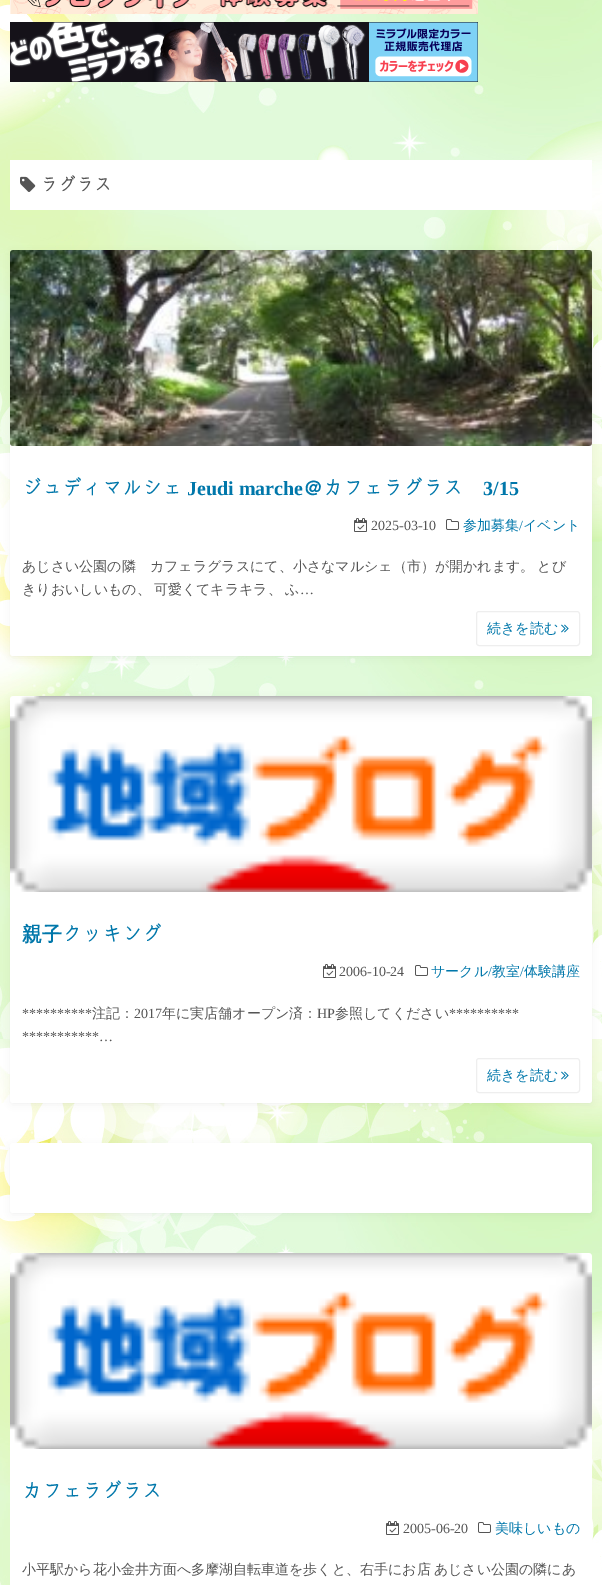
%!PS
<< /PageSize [602 1585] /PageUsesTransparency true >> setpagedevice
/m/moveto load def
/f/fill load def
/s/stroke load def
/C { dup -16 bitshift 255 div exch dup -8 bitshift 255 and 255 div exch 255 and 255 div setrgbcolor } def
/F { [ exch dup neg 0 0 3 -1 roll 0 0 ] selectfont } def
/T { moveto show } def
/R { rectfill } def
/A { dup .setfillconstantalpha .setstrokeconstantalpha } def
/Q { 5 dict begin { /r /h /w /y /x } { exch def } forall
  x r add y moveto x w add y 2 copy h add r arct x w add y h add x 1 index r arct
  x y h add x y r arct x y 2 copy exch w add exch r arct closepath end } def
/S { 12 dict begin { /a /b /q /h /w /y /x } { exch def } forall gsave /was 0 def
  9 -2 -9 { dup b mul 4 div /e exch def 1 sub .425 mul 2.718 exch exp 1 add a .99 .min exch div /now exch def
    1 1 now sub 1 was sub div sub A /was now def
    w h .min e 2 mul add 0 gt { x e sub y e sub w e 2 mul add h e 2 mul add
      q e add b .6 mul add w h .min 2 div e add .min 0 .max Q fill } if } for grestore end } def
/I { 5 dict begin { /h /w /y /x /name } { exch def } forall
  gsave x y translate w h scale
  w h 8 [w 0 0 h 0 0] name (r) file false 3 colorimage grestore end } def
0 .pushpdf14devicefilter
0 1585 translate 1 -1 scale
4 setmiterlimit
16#FFFFFF C
0 0 602 1585 R
(1.rgb) 0 0 602 1585 I
(2.rgb) 10 0 468 14 I
(3.rgb) 10 22 468 60 I
10 160 582 50 R
(4.rgb) 20 176 16 16 I
/Kokoro-Bold 18 F
16#555555 C
(ラグラス) 40 191 T
16#0A0F11 C
12 254 578 402 1 4 .07 S
16#FFFFFF C
10 250 582 406 3 Q f
(5.rgb) 10 250 582 196 I
/Kokoro-Bold 20 F
16#0077AA C
(ジュディマルシェ) 22 495 T
/LiberationSerif-Bold 20 F
(Jeudi marche) 187 495 T
/WenQuanYiZenHei-Bold 20 F
(＠) 303 495 T
/Kokoro-Bold 20 F
(カフェラグラス) 323 495 T
/LiberationSerif-Bold 20 F
(3/15) 483 495 T
(6.rgb) 354 518 13 14 I
/LiberationSerif-Regular 14 F
16#555555 C
(2025-03-10) 371 530 T
(7.rgb) 446 519 13 11 I
/WenQuanYiZenHei-Medium 14 F
16#0077AA C
(参加募集) 463 530 T
/LiberationSerif-Regular 14 F
(/) 519 530 T
/WenQuanYiZenHei-Medium 14 F
(イベント) 523 530 T
16#555555 C
22 571 m -1 0 32 (あじさい公園の隣　カフェラグラスにて、小さなマルシェ（市）が開かれます。 とび) widthshow
22 594 m -1 0 32 (きりおいしいもの、 可愛くてキラキラ、 ふ) widthshow
/LiberationSerif-Regular 14 F
(…) 300 594 T
16#EEEEEE C
476.5 611.5 103 34 2.5 Q s
/WenQuanYiZenHei-Medium 14 F
16#0077AA C
(続きを読む) 487 633 T
(8.rgb) 561 624 8 9 I
16#0A0F11 C
12 700 578 403 1 4 .07 S
16#FFFFFF C
10 696 582 407 3 Q f
(9.rgb) 10 696 582 196 I
/WenQuanYiZenHei-Bold 20 F
16#0077AA C
(親子) 22 941 T
/Kokoro-Bold 20 F
(クッキング コナフェ) 62 941 T
(6.rgb) 323 964 13 14 I
/LiberationSerif-Regular 14 F
16#555555 C
(2006-10-24) 339 976 T
(7.rgb) 415 965 13 11 I
/WenQuanYiZenHei-Medium 14 F
16#0077AA C
(サークル) 431 976 T
/LiberationSerif-Regular 14 F
(/) 488 976 T
/WenQuanYiZenHei-Medium 14 F
(教室) 492 976 T
/LiberationSerif-Regular 14 F
(/) 520 976 T
/WenQuanYiZenHei-Medium 14 F
(体験講座) 524 976 T
/LiberationSerif-Regular 14 F
16#555555 C
(**********) 22 1018 T
/WenQuanYiZenHei-Medium 14 F
(注記：) 92 1018 T
/LiberationSerif-Regular 14 F
(2017) 134 1018 T
/WenQuanYiZenHei-Medium 14 F
(年に実店舗オープン済：) 162 1018 T
/LiberationSerif-Regular 14 F
(HP) 317 1018 T
/WenQuanYiZenHei-Medium 14 F
(参照してください) 335 1018 T
/LiberationSerif-Regular 14 F
(**********) 449 1018 T
(***********…) 22 1041 T
16#EEEEEE C
476.5 1058.5 103 34 2.5 Q s
/WenQuanYiZenHei-Medium 14 F
16#0077AA C
(続きを読む) 487 1080 T
(8.rgb) 561 1071 8 9 I
16#0A0F11 C
12 1147 578 66 1 4 .07 S
16#FFFFFF C
10 1143 582 70 3 Q f
10 1253 582 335 3 Q f
(10.rgb) 10 1253 582 196 I
/Kokoro-Bold 20 F
16#0077AA C
(カフェラグラス) 22 1498 T
(6.rgb) 386 1521 13 14 I
/LiberationSerif-Regular 14 F
16#555555 C
(2005-06-20) 403 1533 T
(7.rgb) 478 1522 13 11 I
/WenQuanYiZenHei-Medium 14 F
16#0077AA C
(美味しいもの) 495 1533 T
16#555555 C
22 1574 m -1 0 32 (小平駅から花小金井方面へ多摩湖自転車道を歩くと、右手にお店 あじさい公園の隣にあ) widthshow
.poppdf14devicefilter showpage
